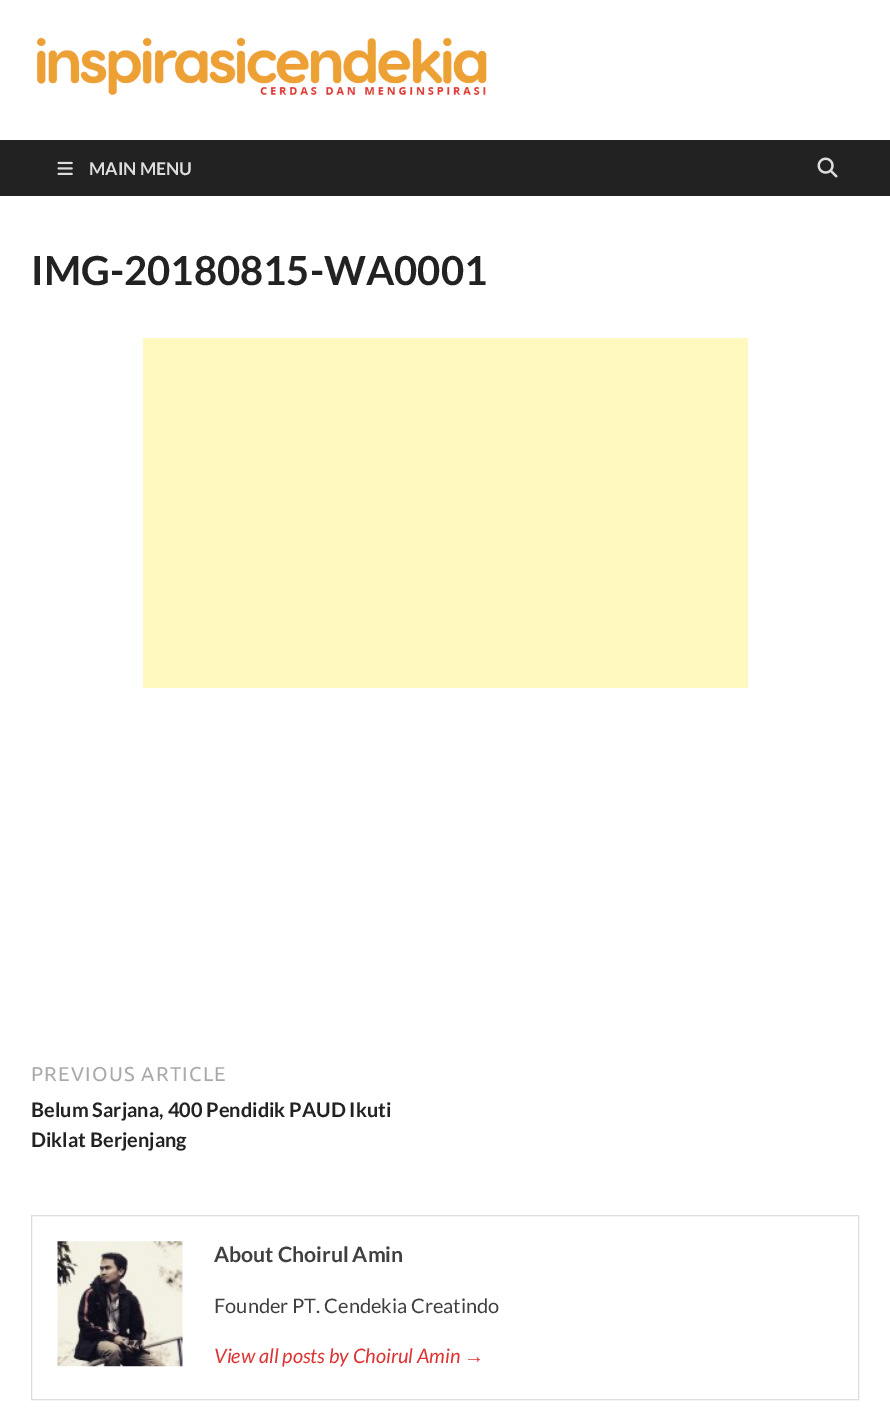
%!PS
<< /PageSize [890 1415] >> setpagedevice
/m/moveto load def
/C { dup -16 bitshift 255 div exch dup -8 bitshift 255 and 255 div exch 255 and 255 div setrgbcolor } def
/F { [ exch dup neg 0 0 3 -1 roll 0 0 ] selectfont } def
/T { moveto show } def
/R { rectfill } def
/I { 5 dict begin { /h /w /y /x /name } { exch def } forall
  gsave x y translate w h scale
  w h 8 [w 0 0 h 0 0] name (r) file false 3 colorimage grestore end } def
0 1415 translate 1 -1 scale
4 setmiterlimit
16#FFFFFF C
0 0 890 1415 R
(1.rgb) 36 37 451 58 I
16#222222 C
0 140 890 56 R
(2.rgb) 57 161 16 14 I
/Lato-Bold 17.5 F
16#DDDDDD C
(MAIN MENU) 89 175 T
(3.rgb) 817 157 21 21 I
/Lato-Bold 40 F
16#222222 C
(IMG-20180815-WA0001) 31 285 T
16#FFF9C0 C
143 338 605 350 R
/Ubuntu-Regular 20 F
16#AAAAAA C
31 1081 m 1.25 0 (PREVIOUS ARTICLE) ashow
/Lato-Bold 20 F
16#222222 C
(Belum Sarjana, 400 Pendidik PAUD Ikuti) 31 1117 T
(Diklat Berjenjang) 31 1147 T
16#DDDDDD C
31.5 1215.5 827 184 rectstroke
(4.rgb) 57 1241 126 126 I
/Lato-Bold 21.25 F
16#404040 C
(About Choirul Amin) 214 1262 T
/Lato-Regular 20 F
(Founder PT. Cendekia Creatindo) 214 1313 T
/Lato-Italic 20 F
16#DD3333 C
(View all posts by Choirul Amin) 214 1363 T
/LiberationSans-Italic 20 F
(→) 464 1363 T
showpage
